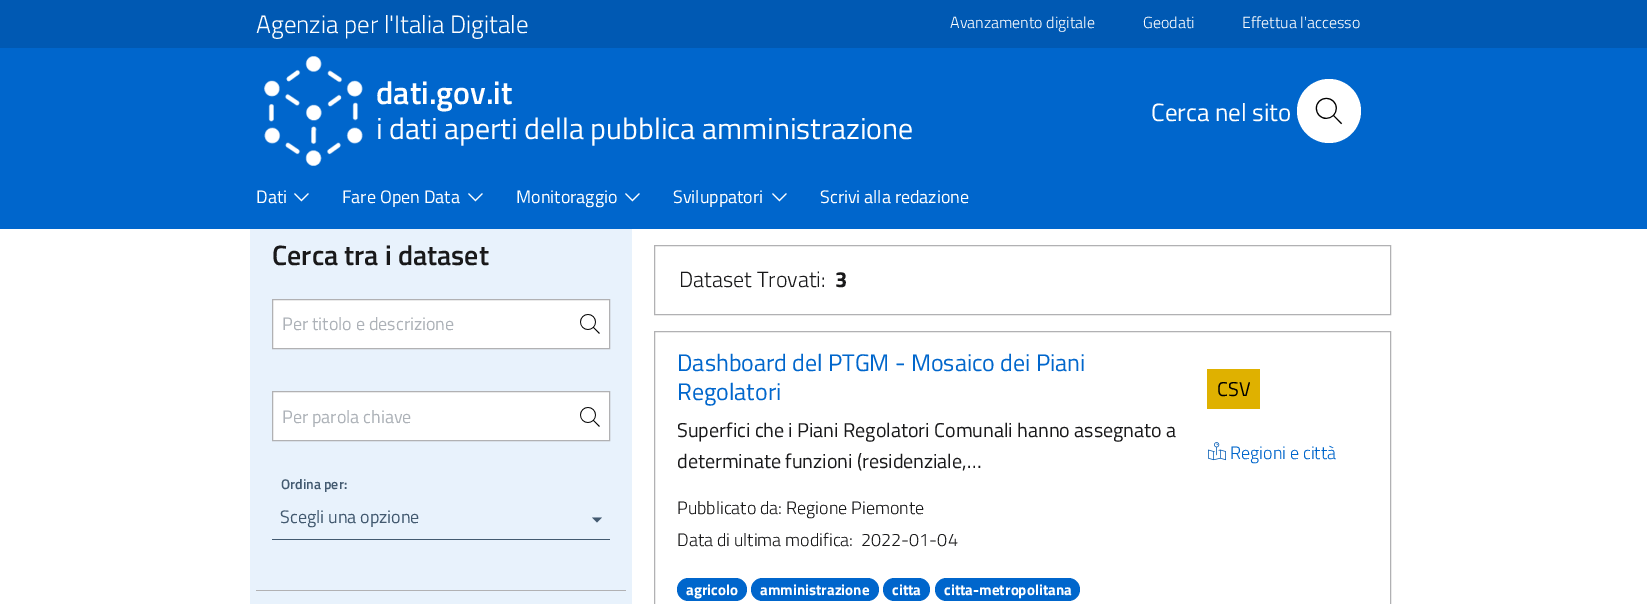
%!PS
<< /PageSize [1647 604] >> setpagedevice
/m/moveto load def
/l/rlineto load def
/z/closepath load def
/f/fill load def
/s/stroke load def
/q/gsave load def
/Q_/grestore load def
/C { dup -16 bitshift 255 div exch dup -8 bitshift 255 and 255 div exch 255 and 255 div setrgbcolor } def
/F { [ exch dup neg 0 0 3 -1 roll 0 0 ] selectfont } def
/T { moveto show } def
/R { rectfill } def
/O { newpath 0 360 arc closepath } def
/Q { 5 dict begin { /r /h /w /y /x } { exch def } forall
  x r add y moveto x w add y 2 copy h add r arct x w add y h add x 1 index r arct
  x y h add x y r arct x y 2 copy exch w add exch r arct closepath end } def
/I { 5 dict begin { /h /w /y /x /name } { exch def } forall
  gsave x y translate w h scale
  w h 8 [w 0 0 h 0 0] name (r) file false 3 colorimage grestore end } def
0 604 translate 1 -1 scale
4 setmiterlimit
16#FFFFFF C
0 0 1647 604 R
16#0059B3 C
0 0 1647 48 R
/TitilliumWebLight-Light 25 F
16#FFFFFF C
(Agenzia per l'Italia Digitale) 256 33 T
/TitilliumWebLight-Light 16 F
(Avanzamento digitale) 950 28 T
(Geodati) 1143 28 T
(Effettua l'accesso) 1242 28 T
16#0066CC C
0 48 1647 181 R
(1.rgb) 264 56 99 110 I
/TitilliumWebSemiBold-SemiBold 32 F
16#FFFFFF C
(dati.gov.it) 376 104 T
/TitilliumWeb-Regular 30 F
(i dati aperti della pubblica amministrazione) 376 139 T
/TitilliumWeb-Regular 25 F
(Cerca nel sito) 1151 121 T
1329 111 32 O f
(2.rgb) 1315 97 28 28 I
/TitilliumWeb-Regular 18 F
(Dati) 256 203 T
(3.rgb) 294 193 15 9 I
(Fare Open Data) 342 203 T
(3.rgb) 468 193 15 9 I
(Monitoraggio) 516 203 T
(3.rgb) 625 193 15 9 I
(Sviluppatori) 673 203 T
(3.rgb) 772 193 15 9 I
(Scrivi alla redazione) 820 203 T
16#E8F2FC C
250 229 382 375 R
/TitilliumWebSemiBold-SemiBold 28 F
16#19191A C
(Cerca tra i dataset) 272 265 T
16#FFFFFF C
272.5 299.5 m 337 0 l 0 49 l -337 0 l z q f Q_
16#B1B1B3 C
s
/TitilliumWeb-Regular 18 F
16#ADB2B8 C
(Per titolo e descrizione) 282 330 T
(4.rgb) 580 314 20 20 I
16#FFFFFF C
272.5 391.5 m 337 0 l 0 49 l -337 0 l z q f Q_
16#B1B1B3 C
s
16#ADB2B8 C
(Per parola chiave) 282 423 T
(4.rgb) 580 407 20 20 I
/TitilliumWebSemiBold-SemiBold 14 F
16#435A70 C
(Ordina per:) 281 489 T
/TitilliumWeb-Regular 18 F
(Scegli una opzione) 280 523 T
272 539 338 1 R
592 517.5 m 10 0 l -5 5 l z f
16#B1B1B3 C
256 590 370 1 R
654.5 245.5 736 69 rectstroke
/TitilliumWebLight-Light 22 F
16#19191A C
(Dataset Trovati:) 679 287 T
/TitilliumWeb-Bold 22 F
(3) 835 287 T
16#B1B1B3 C
654.5 331.5 736 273 rectstroke
/TitilliumWeb-Regular 24 F
16#0066CC C
(Dashboard del PTGM - Mosaico dei Piani) 677 371 T
(Regolatori) 677 400 T
/TitilliumWeb-Regular 20 F
16#19191A C
(Superfici che i Piani Regolatori Comunali hanno assegnato a) 677 437 T
(determinate funzioni \(residenziale,…) 677 468 T
/TitilliumWebLight-Light 18 F
(Pubblicato da: Regione Piemonte) 677 514 T
(Data di ultima modifica:) 677 546 T
(2022-01-04) 861 546 T
16#0066CC C
677 578 70 23 11.5 Q f
/TitilliumWeb-Bold 15 F
16#FFFFFF C
(agricolo) 686 595 T
16#0066CC C
751 578 128 23 11.5 Q f
16#FFFFFF C
(amministrazione) 760 595 T
16#0066CC C
883 578 47 23 11.5 Q f
16#FFFFFF C
(citta) 892 595 T
16#0066CC C
935 578 145 23 11.5 Q f
16#FFFFFF C
(citta-metropolitana) 944 595 T
16#DFB100 C
1207 369 53 40 R
/TitilliumWeb-Regular 20 F
16#000000 C
(CSV) 1217 396 T
(5.rgb) 1208 442 18 19 I
/TitilliumWebLight-Light 18 F
16#0066CC C
(Regioni e città) 1230 459 T
showpage
